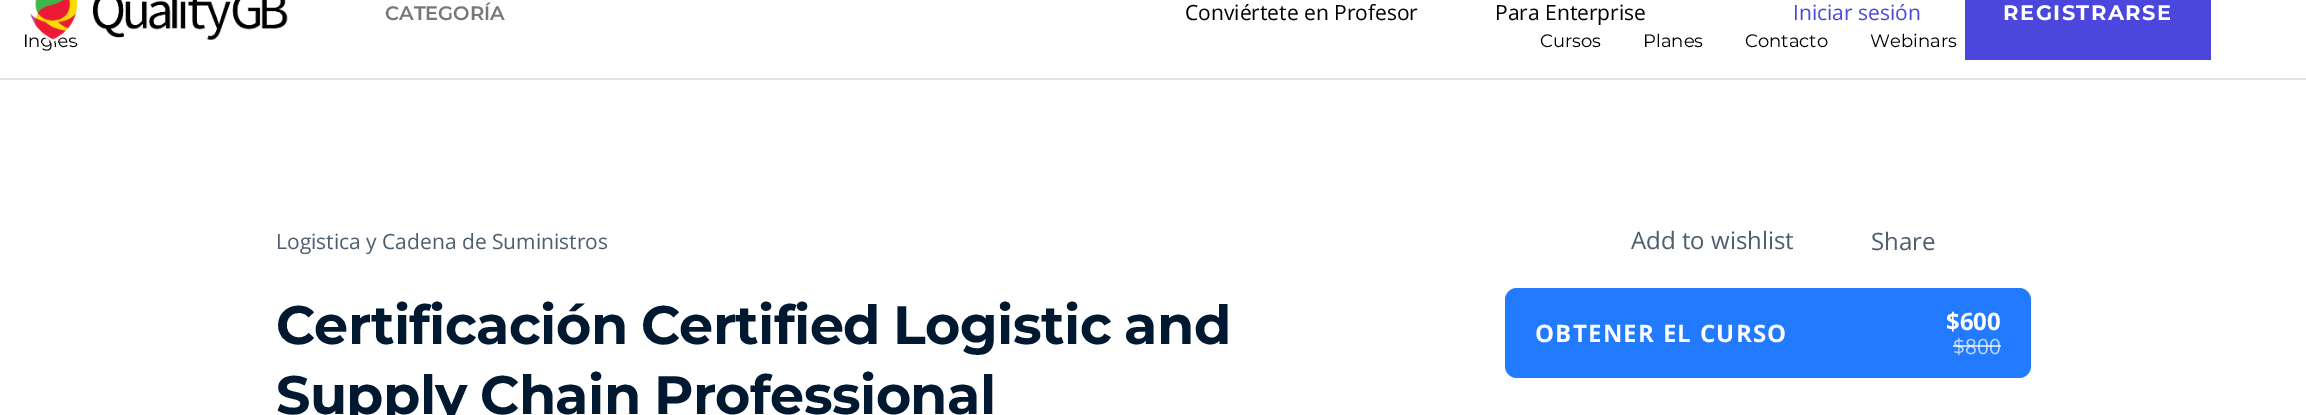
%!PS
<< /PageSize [2306 415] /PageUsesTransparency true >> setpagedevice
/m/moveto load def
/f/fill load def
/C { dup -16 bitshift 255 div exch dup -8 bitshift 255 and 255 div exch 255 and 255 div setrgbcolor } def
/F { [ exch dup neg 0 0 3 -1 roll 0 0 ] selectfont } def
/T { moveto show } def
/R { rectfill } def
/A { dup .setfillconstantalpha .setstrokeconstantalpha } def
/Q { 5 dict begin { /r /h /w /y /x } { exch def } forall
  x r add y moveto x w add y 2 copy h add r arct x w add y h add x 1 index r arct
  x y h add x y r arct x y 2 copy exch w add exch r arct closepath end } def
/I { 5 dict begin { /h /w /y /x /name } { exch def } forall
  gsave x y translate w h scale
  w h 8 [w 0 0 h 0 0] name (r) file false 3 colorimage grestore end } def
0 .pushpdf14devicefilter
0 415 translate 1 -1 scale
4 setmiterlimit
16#FFFFFF C
0 0 2306 415 R
/Montserrat-Regular 18 F
16#000000 C
(Inglés) 23 47 T
(1.rgb) 30 0 258 43 I
/Montserrat-SemiBold 19.5 F
16#777777 C
(CATEGORÍA) 385 20 T
/OpenSans-Regular 21 F
16#000000 C
(Conviértete en Profesor) 1185 20 T
(Para Enterprise) 1495 20 T
16#4B47DD C
(Iniciar sesión) 1793 20 T
1965 0 246 60 R
/Montserrat-Bold 21 F
16#FFFFFF C
2003 20 m 1.5 0 (REGISTRARSE) ashow
16#E2E2E2 C
0 78 2306 2 R
/Montserrat-Regular 18 F
16#000000 C
(Cursos) 1540 47 T
(Planes) 1643 47 T
(Contacto) 1745 47 T
(Webinars) 1870 47 T
/OpenSans-Regular 21 F
16#4D5E6F C
(Logistica y Cadena de Suministros) 276 249 T
/Montserrat-Bold 54 F
16#001931 C
276 344 m -1.5 0 32 -.6 0 (Certificación Certified Logistic and) awidthshow
276 414 m -1.5 0 32 -.6 0 (Supply Chain Professional) awidthshow
/OpenSans-Regular 24 F
16#4D5E6F C
(Add to wishlist) 1631 249 T
(Share) 1871 250 T
16#227AFF C
1505 288 526 90 12 Q f
/OpenSans-Bold 24 F
16#FFFFFF C
1535 342 m 1.25 0 (OBTENER EL CURSO) ashow
($600) 1946 330 T
/OpenSans-Regular 21 F
16#BDD7FF C
($800) 1953 354 T
0.7 A
16#FFFFFF C
1953 345 48 2 R
.poppdf14devicefilter showpage
